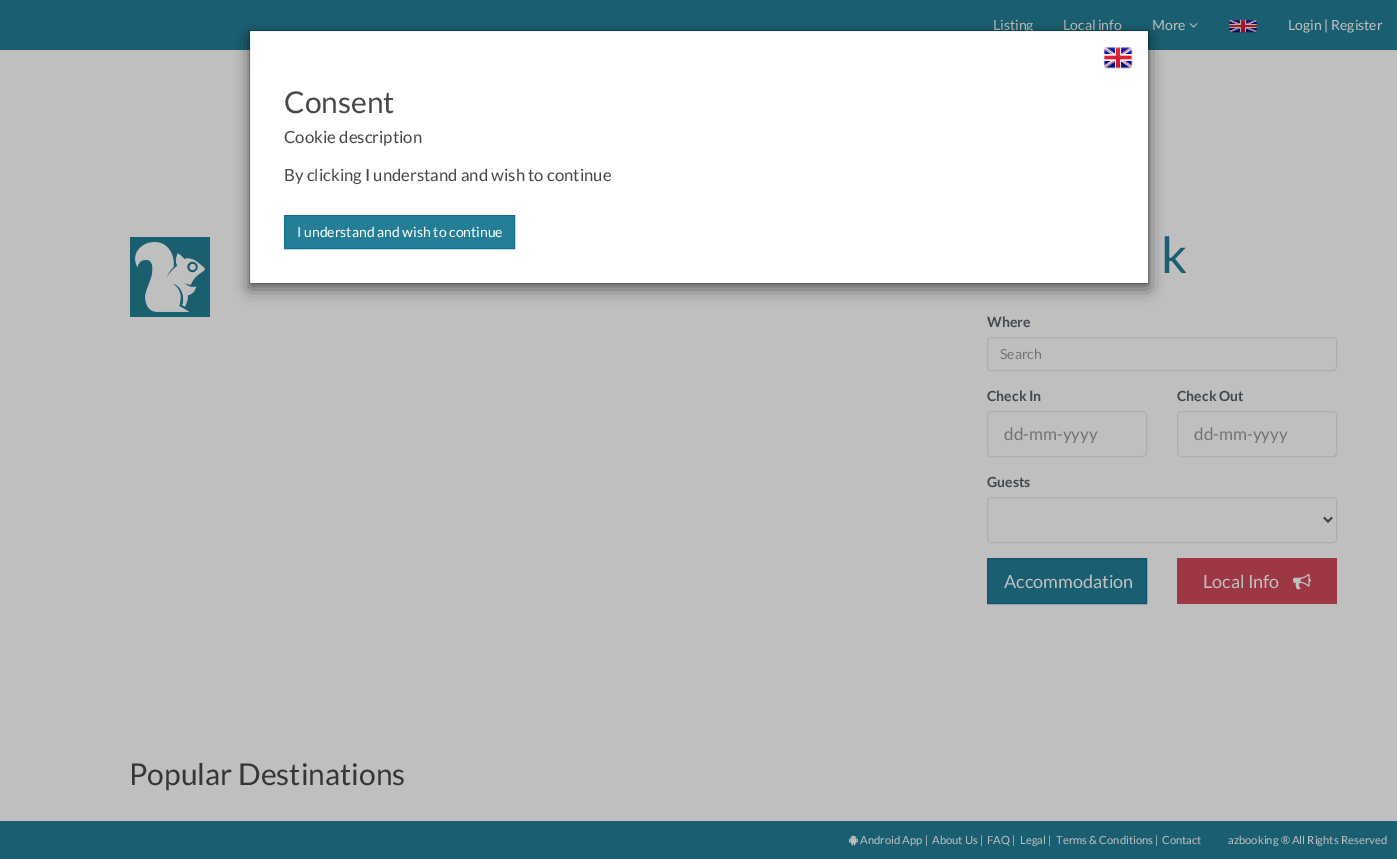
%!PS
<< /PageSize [1397 859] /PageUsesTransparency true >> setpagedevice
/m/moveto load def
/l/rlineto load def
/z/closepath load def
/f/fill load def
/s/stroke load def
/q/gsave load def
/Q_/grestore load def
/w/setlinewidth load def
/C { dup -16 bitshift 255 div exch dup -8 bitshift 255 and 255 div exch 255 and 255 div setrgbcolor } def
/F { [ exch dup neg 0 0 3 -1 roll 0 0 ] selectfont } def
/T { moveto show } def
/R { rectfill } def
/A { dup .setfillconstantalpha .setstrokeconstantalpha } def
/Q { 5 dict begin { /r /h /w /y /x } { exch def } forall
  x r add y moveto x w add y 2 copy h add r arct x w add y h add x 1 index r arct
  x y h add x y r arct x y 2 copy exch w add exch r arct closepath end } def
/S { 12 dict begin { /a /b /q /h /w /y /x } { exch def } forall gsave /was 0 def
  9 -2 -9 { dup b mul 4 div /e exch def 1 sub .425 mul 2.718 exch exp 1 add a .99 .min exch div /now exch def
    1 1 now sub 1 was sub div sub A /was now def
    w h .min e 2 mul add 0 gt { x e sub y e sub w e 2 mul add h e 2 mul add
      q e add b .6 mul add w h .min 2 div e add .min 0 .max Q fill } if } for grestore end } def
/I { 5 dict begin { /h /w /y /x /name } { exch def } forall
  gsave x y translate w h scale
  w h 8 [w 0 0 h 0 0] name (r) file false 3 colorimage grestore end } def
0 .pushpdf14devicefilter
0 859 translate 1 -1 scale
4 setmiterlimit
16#BFBFBF C
0 0 1397 859 R
16#1A5F71 C
0 0 1397 50 R
/Lato-Regular 14 F
16#BFBFBF C
(Listing) 993 30 T
(Local info) 1063 30 T
(More) 1152 30 T
(1.rgb) 1189 23 9 5 I
(2.rgb) 1228 19 30 14 I
(Login | Register) 1288 30 T
16#000000 C
249 35 900 254 0 7.5 .5 S
16#FFFFFF C
250 31 898 252 R
0.2 A
16#000000 C
249.5 30.5 899 253 rectstroke
1 A
(3.rgb) 1103 46 30 23 I
/Lato-Regular 30 F
16#484848 C
(Consent) 284 113 T
/Lato-Regular 16.75 F
(Cookie description) 284 143 T
(By clicking I understand and wish to continue) 284 181 T
16#237E96 C
284.5 215.5 m 230 0 l 0 33 l -230 0 l z q f Q_
16#146E96 C
s
/Lato-Regular 14 F
16#FFFFFF C
(I understand and wish to continue) 297 237 T
16#1A5F71 C
130 237 80 80 R
(4.rgb) 135 242 70 70 I
/Lato-Regular 50 F
(k) 1161 273 T
/Lato-Bold 14 F
16#42484F C
(Where) 987 327 T
16#B1ADAD C
987.5 337.5 349 33 3.5 Q s
/Lato-Regular 14 F
16#737373 C
(Search) 1000 359 T
/Lato-Bold 14 F
16#42484F C
(Check In) 987 401 T
16#B1ADAD C
987.5 411.5 159 45 3.5 Q s
/Lato-Regular 17 F
16#737373 C
(dd-mm-yyyy) 1004 440 T
/Lato-Bold 14 F
16#42484F C
(Check Out) 1177 401 T
16#B1ADAD C
1177.5 411.5 159 45 3.5 Q s
/Lato-Regular 17 F
16#737373 C
(dd-mm-yyyy) 1194 440 T
/Lato-Bold 14 F
16#42484F C
(Guests) 987 487 T
16#B1ADAD C
987.5 497.5 349 45 3.5 Q s
16#404345 C
2 w
1324 517.5 m 4 4 l 4 -4 l s
16#1A5F71 C
987.5 558.5 m 159 0 l 0 45 l -159 0 l z q f Q_
16#0F5371 C
1 w
s
/Lato-Regular 18 F
16#BFBFBF C
(Accommodation) 1004 588 T
16#9D3744 C
1177 558 160 46 R
16#BFBFBF C
(Local Info) 1203 588 T
(5.rgb) 1293 573 18 17 I
/Lato-Regular 30 F
16#363636 C
(Popular Destinations) 129 785 T
16#1A5F71 C
0 821 1397 38 R
(6.rgb) 849 835 9 11 I
/Lato-Regular 11.25 F
16#BFBFBF C
(Android App |) 860 844 T
(About Us |) 932 844 T
(FAQ |) 987 844 T
(Legal |) 1020 844 T
(Terms & Conditions |) 1056 844 T
(Contact) 1162 844 T
(azbooking ® All Rights Reserved) 1228 844 T
.poppdf14devicefilter showpage
